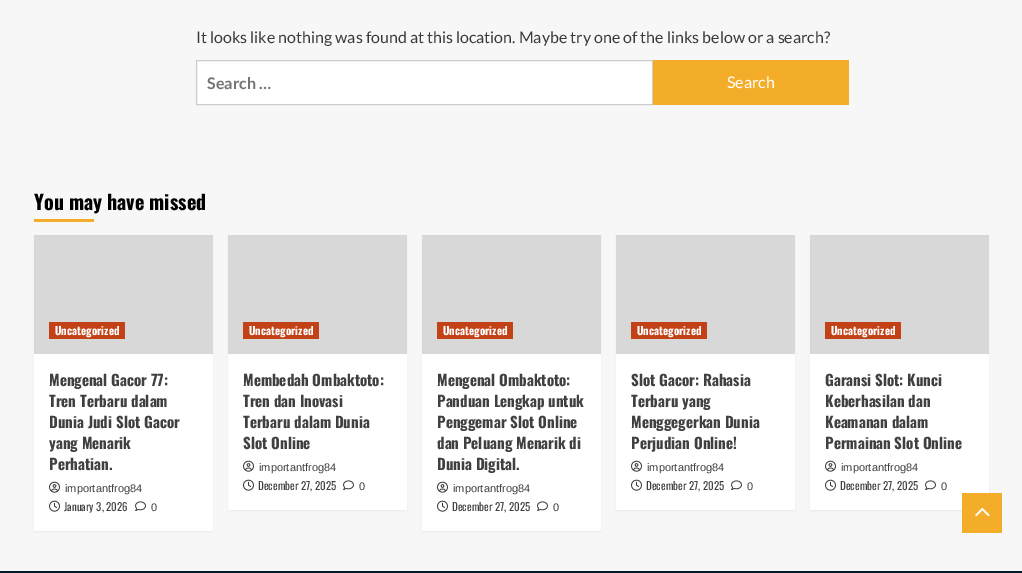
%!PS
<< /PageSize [1022 573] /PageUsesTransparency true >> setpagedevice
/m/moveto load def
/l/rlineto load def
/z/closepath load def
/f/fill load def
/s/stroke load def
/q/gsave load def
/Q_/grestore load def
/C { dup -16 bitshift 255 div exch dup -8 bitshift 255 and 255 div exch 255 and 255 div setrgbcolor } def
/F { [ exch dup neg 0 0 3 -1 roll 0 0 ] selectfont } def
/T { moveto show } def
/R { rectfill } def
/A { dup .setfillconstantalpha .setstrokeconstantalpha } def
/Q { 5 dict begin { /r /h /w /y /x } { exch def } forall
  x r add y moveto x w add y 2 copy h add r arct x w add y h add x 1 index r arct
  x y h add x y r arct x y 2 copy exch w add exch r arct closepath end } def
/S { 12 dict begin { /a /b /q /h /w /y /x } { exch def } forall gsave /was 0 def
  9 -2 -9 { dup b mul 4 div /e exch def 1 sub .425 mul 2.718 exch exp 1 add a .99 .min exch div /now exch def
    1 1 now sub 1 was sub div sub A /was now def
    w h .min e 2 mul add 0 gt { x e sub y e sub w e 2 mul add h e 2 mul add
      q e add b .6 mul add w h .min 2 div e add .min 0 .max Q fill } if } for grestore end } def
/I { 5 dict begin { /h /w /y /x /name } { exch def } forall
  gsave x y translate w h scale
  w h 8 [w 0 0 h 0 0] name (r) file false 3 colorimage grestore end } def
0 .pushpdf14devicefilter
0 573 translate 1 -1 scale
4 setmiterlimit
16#F7F7F7 C
0 0 1022 573 R
/Lato-Regular 16 F
16#3A3A3A C
(It looks like nothing was found at this location. Maybe try one of the links below or a search?) 196 43 T
16#FFFFFF C
196.5 60.5 m 456 0 l 0 44 l -456 0 l z q f Q_
16#CCCCCC C
s
/Lato-Bold 16 F
16#757575 C
(Search …) 207 89 T
16#F3AD29 C
653 60 196 45 R
/Lato-Regular 16 F
16#FFFFFF C
(Search) 727 88 T
/Oswald-Bold 20 F
16#000000 C
(You may have missed) 34 210 T
16#F3AD29 C
34 219 60 3 R
16#000000 C
34 236 179 296 0 1 .05 S
16#FFFFFF C
34 354 179 177 R
16#D8D8D8 C
34 235 179 119 R
16#C34116 C
49 322 76 17 R
/Oswald-Bold 11 F
16#FFFFFF C
(Uncategorized) 55 335 T
/Oswald-Bold 15 F
16#404040 C
(Mengenal Gacor 77:) 49 386 T
(Tren Terbaru dalam) 49 407 T
(Dunia Judi Slot Gacor) 49 428 T
(yang Menarik) 49 449 T
(Perhatian.) 49 470 T
(1.rgb) 49 481 11 12 I
/LiberationSans-Regular 11 F
(importantfrog84) 65 492 T
(2.rgb) 49 500 11 12 I
/Oswald-Regular 11 F
(January 3, 2026) 64 511 T
(3.rgb) 135 501 11 10 I
/LiberationSans-Regular 11 F
(0) 151 511 T
16#000000 C
228 236 179 275 0 1 .05 S
16#FFFFFF C
228 354 179 156 R
16#D8D8D8 C
228 235 179 119 R
16#C34116 C
243 322 76 17 R
/Oswald-Bold 11 F
16#FFFFFF C
(Uncategorized) 249 335 T
/Oswald-Bold 15 F
16#404040 C
(Membedah Ombaktoto:) 243 386 T
(Tren dan Inovasi) 243 407 T
(Terbaru dalam Dunia) 243 428 T
(Slot Online) 243 449 T
(1.rgb) 243 460 11 12 I
/LiberationSans-Regular 11 F
(importantfrog84) 259 471 T
(2.rgb) 243 479 11 12 I
/Oswald-Regular 11 F
(December 27, 2025) 258 490 T
(3.rgb) 343 480 11 10 I
/LiberationSans-Regular 11 F
(0) 359 490 T
16#000000 C
422 236 179 296 0 1 .05 S
16#FFFFFF C
422 354 179 177 R
16#D8D8D8 C
422 235 179 119 R
16#C34116 C
437 322 76 17 R
/Oswald-Bold 11 F
16#FFFFFF C
(Uncategorized) 443 335 T
/Oswald-Bold 15 F
16#404040 C
(Mengenal Ombaktoto:) 437 386 T
(Panduan Lengkap untuk) 437 407 T
(Penggemar Slot Online) 437 428 T
(dan Peluang Menarik di) 437 449 T
(Dunia Digital.) 437 470 T
(1.rgb) 437 481 11 12 I
/LiberationSans-Regular 11 F
(importantfrog84) 453 492 T
(2.rgb) 437 500 11 12 I
/Oswald-Regular 11 F
(December 27, 2025) 452 511 T
(3.rgb) 537 501 11 10 I
/LiberationSans-Regular 11 F
(0) 553 511 T
16#000000 C
616 236 179 275 0 1 .05 S
16#FFFFFF C
616 354 179 156 R
16#D8D8D8 C
616 235 179 119 R
16#C34116 C
631 322 76 17 R
/Oswald-Bold 11 F
16#FFFFFF C
(Uncategorized) 637 335 T
/Oswald-Bold 15 F
16#404040 C
(Slot Gacor: Rahasia) 631 386 T
(Terbaru yang) 631 407 T
(Menggegerkan Dunia) 631 428 T
(Perjudian Online!) 631 449 T
(1.rgb) 631 460 11 12 I
/LiberationSans-Regular 11 F
(importantfrog84) 647 471 T
(2.rgb) 631 479 11 12 I
/Oswald-Regular 11 F
(December 27, 2025) 646 490 T
(3.rgb) 731 480 11 10 I
/LiberationSans-Regular 11 F
(0) 747 490 T
16#000000 C
810 236 179 275 0 1 .05 S
16#FFFFFF C
810 354 179 156 R
16#D8D8D8 C
810 235 179 119 R
16#C34116 C
825 322 76 17 R
/Oswald-Bold 11 F
16#FFFFFF C
(Uncategorized) 831 335 T
/Oswald-Bold 15 F
16#404040 C
(Garansi Slot: Kunci) 825 386 T
(Keberhasilan dan) 825 407 T
(Keamanan dalam) 825 428 T
(Permainan Slot Online) 825 449 T
(1.rgb) 825 460 11 12 I
/LiberationSans-Regular 11 F
(importantfrog84) 841 471 T
(2.rgb) 825 479 11 12 I
/Oswald-Regular 11 F
(December 27, 2025) 840 490 T
(3.rgb) 925 480 11 10 I
/LiberationSans-Regular 11 F
(0) 941 490 T
16#031C27 C
0 571 1022 2 R
16#F3AD29 C
962 493 40 40 R
(4.rgb) 975 507 15 10 I
.poppdf14devicefilter showpage
